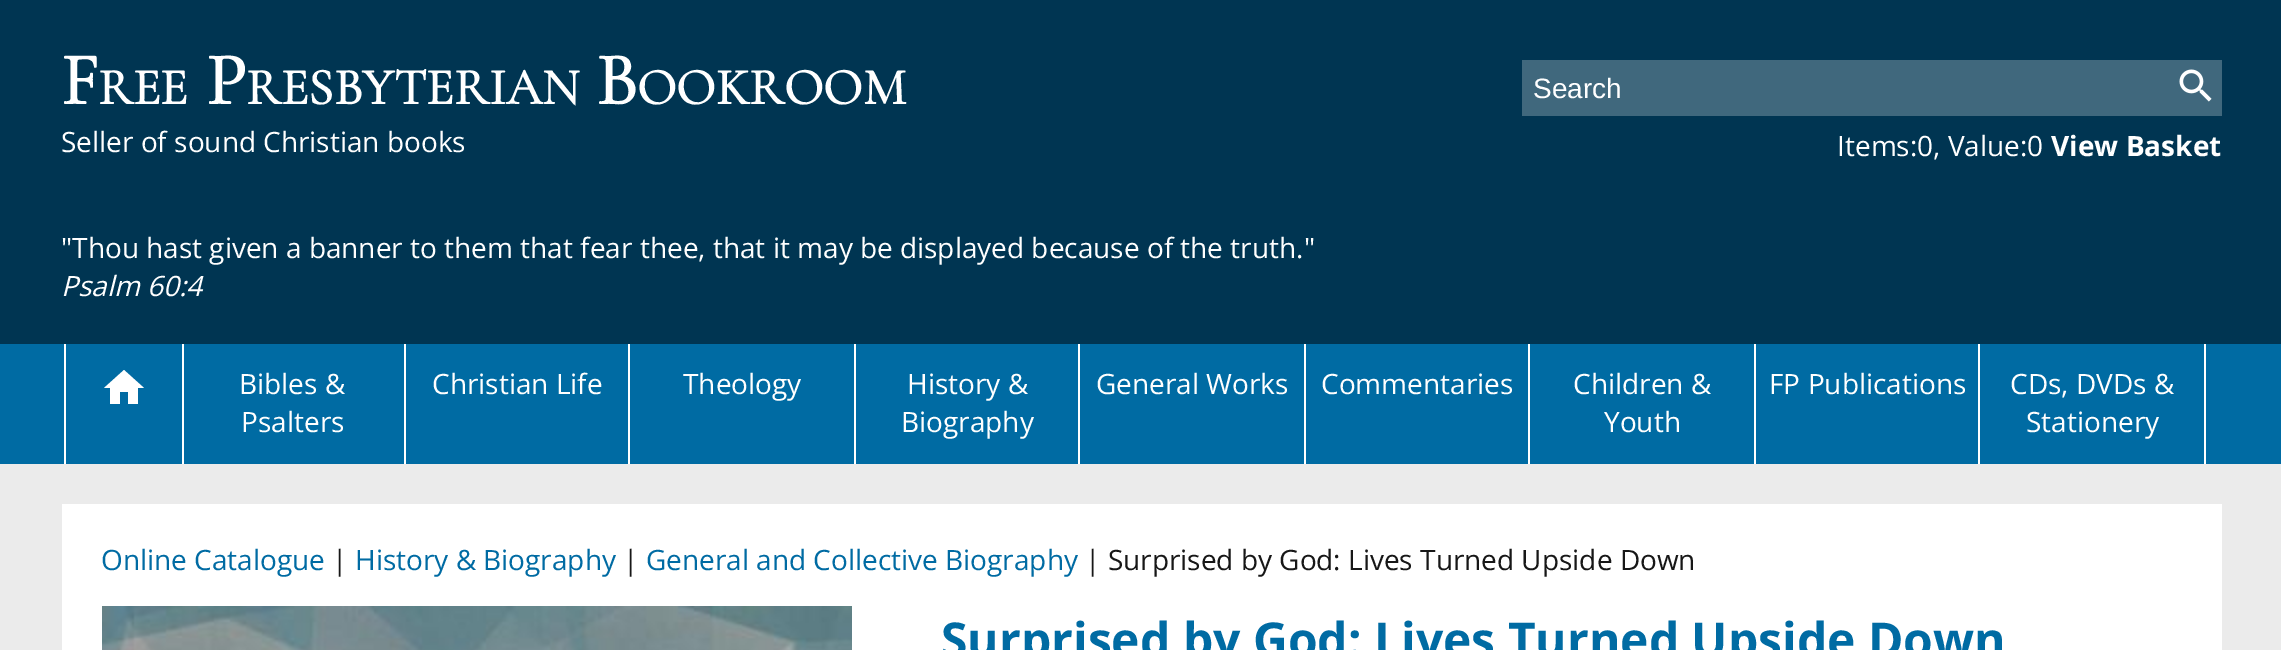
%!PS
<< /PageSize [2281 650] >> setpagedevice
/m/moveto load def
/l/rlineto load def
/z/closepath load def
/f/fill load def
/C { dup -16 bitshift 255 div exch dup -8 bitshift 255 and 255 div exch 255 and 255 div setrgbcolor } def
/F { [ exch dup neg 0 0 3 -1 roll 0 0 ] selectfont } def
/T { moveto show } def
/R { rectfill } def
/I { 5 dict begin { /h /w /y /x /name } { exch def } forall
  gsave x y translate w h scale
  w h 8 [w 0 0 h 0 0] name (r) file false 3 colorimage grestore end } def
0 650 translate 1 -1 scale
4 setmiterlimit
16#EBEBEB C
0 0 2281 650 R
16#003552 C
0 0 2281 344 R
/CormorantGaramond-Bold 74 F
16#FFFFFF C
(F) 61 104 T
/CormorantGaramond-Bold 51.5 F
(REE) 98 104 T
/CormorantGaramond-Bold 74 F
(P) 206 104 T
/CormorantGaramond-Bold 51.5 F
(RESBYTERIAN) 246 104 T
/CormorantGaramond-Bold 74 F
(B) 596 104 T
/CormorantGaramond-Bold 51.5 F
(OOKROOM) 637 104 T
/OpenSans-Regular 28 F
(Seller of sound Christian books) 61 152 T
("Thou hast given a banner to them that fear thee, that it may be displayed because of the truth.") 61 258 T
/OpenSans-Italic 28 F
(Psalm 60:4) 61 296 T
16#40687D C
1522 60 700 56 R
/LiberationSans-Regular 28 F
16#FFFFFF C
(Search) 1533 98 T
(1.rgb) 2179 69 33 33 I
/OpenSans-Regular 28 F
(Items:0, Value:0) 1837 156 T
/OpenSans-Bold 28 F
(View Basket) 2051 156 T
16#006BA3 C
0 344 2281 120 R
16#FFFFFF C
182 344 2 120 R
64 344 2 120 R
120 404 m 0 -12 l 8 0 l 0 12 l 10 0 l 0 -16 l 6 0 l -20 -18 l -20 18 l 6 0 l 0 16 l z f
404 344 2 120 R
/OpenSans-Regular 28 F
(Bibles &) 239 394 T
(Psalters) 241 432 T
628 344 2 120 R
(Christian Life) 432 394 T
854 344 2 120 R
(Theology) 683 394 T
1078 344 2 120 R
(History &) 907 394 T
(Biography) 901 432 T
1304 344 2 120 R
(General Works) 1096 394 T
1528 344 2 120 R
(Commentaries) 1321 394 T
1754 344 2 120 R
(Children &) 1573 394 T
(Youth) 1604 432 T
1978 344 2 120 R
(FP Publications) 1769 394 T
2204 344 2 120 R
(CDs, DVDs &) 2010 394 T
(Stationery) 2026 432 T
62 504 2160 146 R
16#006BA3 C
(Online Catalogue) 101 570 T
16#171717 C
(|) 332 570 T
16#006BA3 C
(History & Biography) 355 570 T
16#171717 C
(|) 623 570 T
16#006BA3 C
(General and Collective Biography) 646 570 T
16#171717 C
(| Surprised by God: Lives Turned Upside Down) 1085 570 T
(2.rgb) 102 606 750 44 I
/OpenSans-Bold 48 F
16#006BA3 C
(Surprised by God: Lives Turned Upside Down) 941 657 T
showpage
